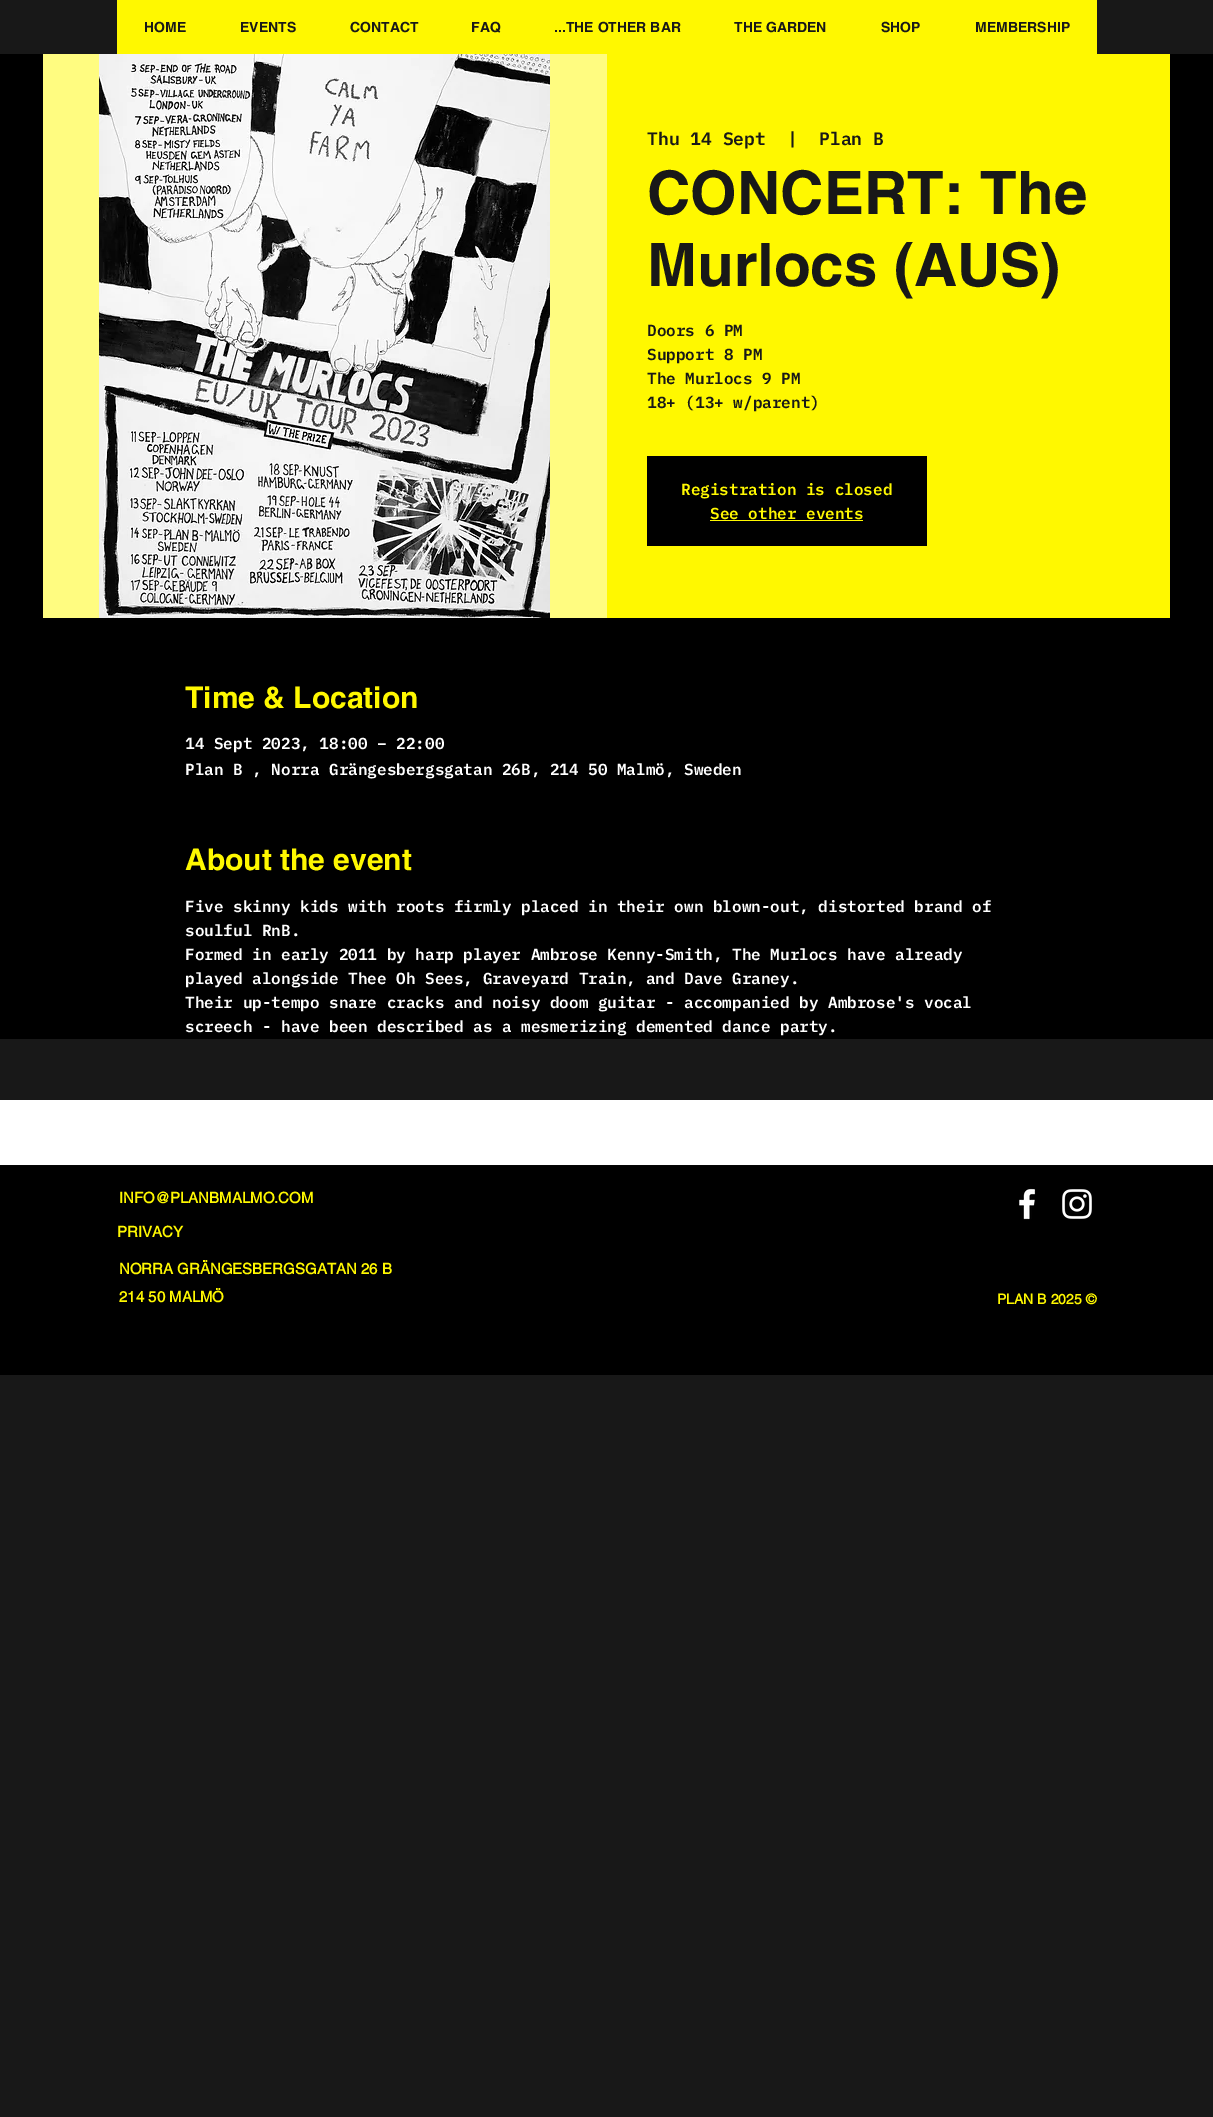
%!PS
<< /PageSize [1213 2117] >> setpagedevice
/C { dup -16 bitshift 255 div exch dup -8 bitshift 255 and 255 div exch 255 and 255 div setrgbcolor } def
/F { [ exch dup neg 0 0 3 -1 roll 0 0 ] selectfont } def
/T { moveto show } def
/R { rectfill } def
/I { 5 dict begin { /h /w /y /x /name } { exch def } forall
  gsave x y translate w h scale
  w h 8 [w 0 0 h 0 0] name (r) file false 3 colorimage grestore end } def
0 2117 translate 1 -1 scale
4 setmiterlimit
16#181818 C
0 0 1213 2117 R
16#FFF800 C
117 0 980 54 R
/helvetica-Bold 14 F
16#181818 C
(HOME) 144 32 T
(EVENTS) 240 32 T
(CONTACT) 350 32 T
(FAQ) 471 32 T
(...THE OTHER BAR) 554 32 T
(THE GARDEN) 734 32 T
(SHOP) 881 32 T
(MEMBERSHIP) 975 32 T
16#000000 C
0 54 1213 985 R
16#FFFC80 C
43 54 564 564 R
(1.rgb) 99 54 451 564 I
16#FFF800 C
607 54 563 564 R
/IBMPlexMono-SemiBold 18 F
16#181818 C
(Thu 14 Sept) 647 145 T
(|) 787 145 T
(Plan B) 819 145 T
/helvetica-Bold 60 F
(CONCERT: The) 647 214 T
(Murlocs \(AUS\)) 647 286 T
/IBMPlexMono-SemiBold 16 F
(Doors 6 PM) 647 336 T
(Support 8 PM) 647 360 T
(The Murlocs 9 PM) 647 384 T
(18+ \(13+ w/parent\)) 647 408 T
16#000000 C
647 456 280 90 R
16#FFF800 C
(Registration is closed) 681 495 T
(See other events) 710 519 T
710 520 153 1 R
/helvetica-Bold 30 F
(Time & Location) 185 708 T
/IBMPlexMono-SemiBold 16 F
16#FFFFFF C
(14 Sept 2023, 18:00 – 22:00) 185 749 T
(Plan B , Norra Grängesbergsgatan 26B, 214 50 Malmö, Sweden) 185 775 T
/helvetica-Bold 30 F
16#FFF800 C
(About the event) 185 870 T
/IBMPlexMono-SemiBold 16 F
16#FFFFFF C
(Five skinny kids with roots firmly placed in their own blown-out, distorted brand of) 185 912 T
(soulful RnB.) 185 936 T
(Formed in early 2011 by harp player Ambrose Kenny-Smith, The Murlocs have already) 185 960 T
(played alongside Thee Oh Sees, Graveyard Train, and Dave Graney.) 185 984 T
(Their up-tempo snare cracks and noisy doom guitar - accompanied by Ambrose's vocal) 185 1008 T
(screech - have been described as a mesmerizing demented dance party.) 185 1032 T
0 1100 1213 65 R
16#000000 C
0 1166 1213 209 R
16#040404 C
0 1165 1213 1 R
/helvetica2-Bold 15 F
16#FFF800 C
(INFO@PLANBMALMO.COM) 119 1203 T
(2.rgb) 1019 1188 17 32 I
(3.rgb) 1062 1189 30 30 I
(PRIVACY) 117 1237 T
(NORRA GRÄNGESBERGSGATAN 26 B) 119 1274 T
(214 50 MALMÖ) 119 1302 T
/helvetica2-Bold 14 F
(PLAN B 2025 ©) 997 1304 T
showpage
